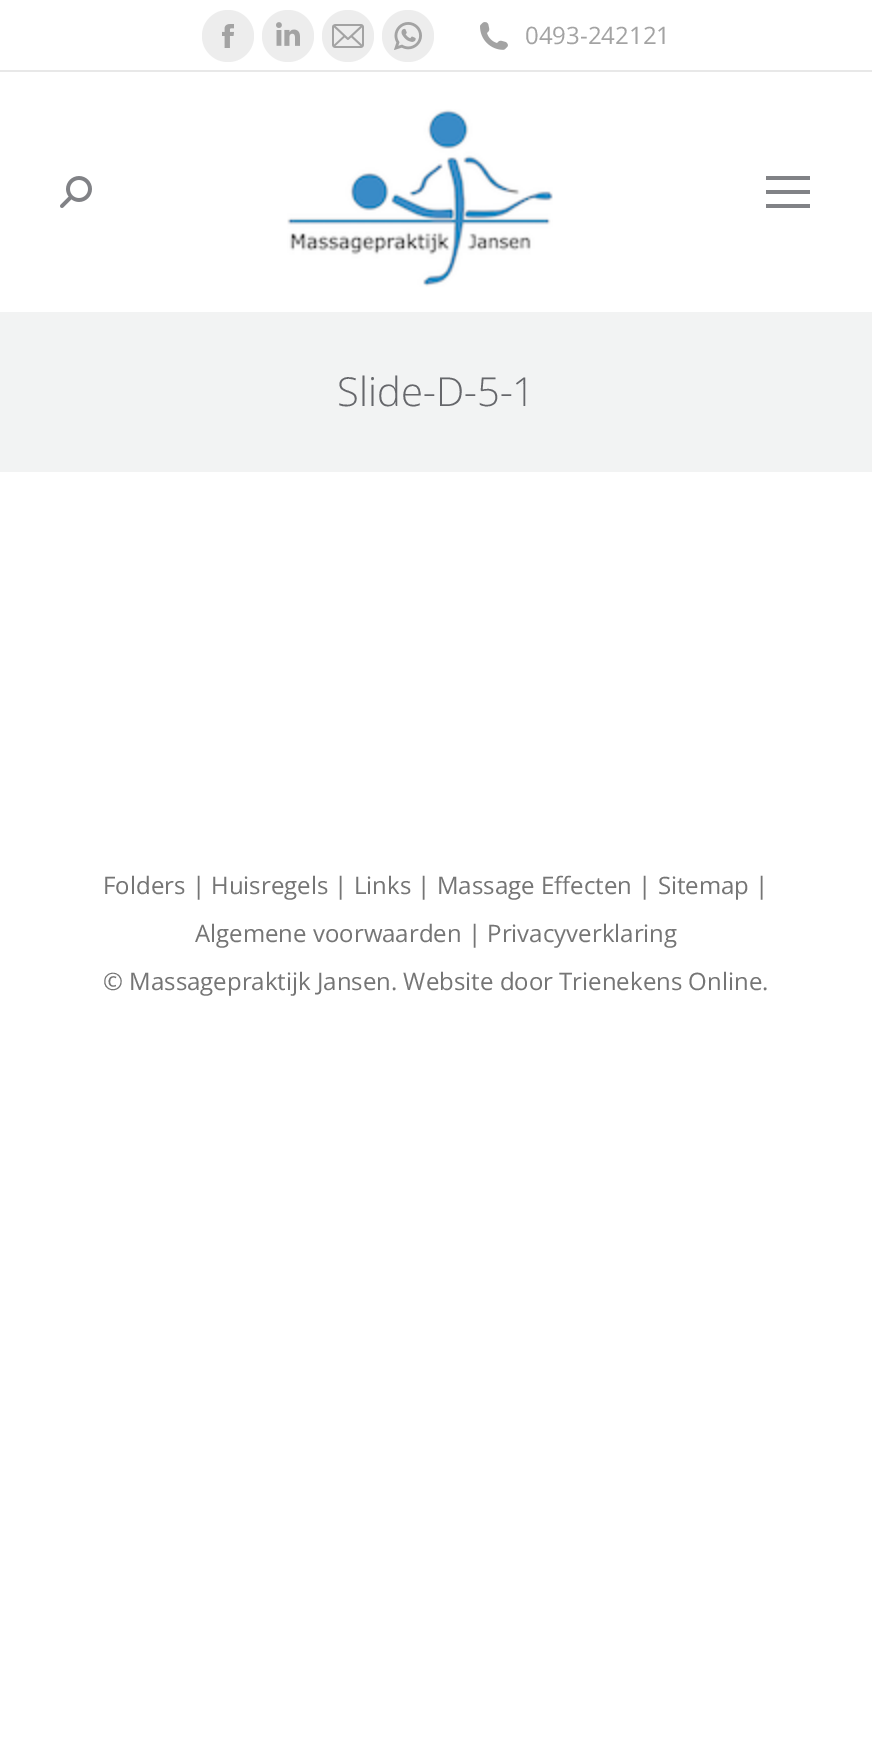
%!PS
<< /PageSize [872 1741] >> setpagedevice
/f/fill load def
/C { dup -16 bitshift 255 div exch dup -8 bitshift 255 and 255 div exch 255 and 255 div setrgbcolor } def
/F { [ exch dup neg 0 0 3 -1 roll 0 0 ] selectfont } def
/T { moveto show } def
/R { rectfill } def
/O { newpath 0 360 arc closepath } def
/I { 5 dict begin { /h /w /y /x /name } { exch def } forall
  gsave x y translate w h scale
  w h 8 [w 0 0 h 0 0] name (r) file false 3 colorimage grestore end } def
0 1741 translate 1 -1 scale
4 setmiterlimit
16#FFFFFF C
0 0 872 1741 R
16#EDEDED C
228 36 26 O f
(1.rgb) 222 24 12 24 I
288 36 26 O f
(2.rgb) 276 22 24 24 I
348 36 26 O f
(3.rgb) 332 24 32 24 I
408 36 26 O f
(4.rgb) 394 22 28 28 I
(5.rgb) 480 22 28 28 I
/OpenSans-Regular 24 F
16#A3A3A3 C
(0493-242121) 525 44 T
16#E8E8E8 C
0 70 872 2 R
(6.rgb) 60 176 32 32 I
(7.rgb) 287 109 266 178 I
16#818286 C
766 176 44 4 R
766 190 44 4 R
766 204 44 4 R
16#F2F3F3 C
0 312 872 160 R
/OpenSans-Light 40 F
16#66676B C
(Slide-D-5-1) 337 406 T
/OpenSans-Regular 24 F
16#757575 C
(Folders | Huisregels | Links | Massage Effecten | Sitemap |) 103 894 T
(Algemene voorwaarden | Privacyverklaring) 195 942 T
(© Massagepraktijk Jansen. Website door Trienekens Online.) 103 990 T
showpage
